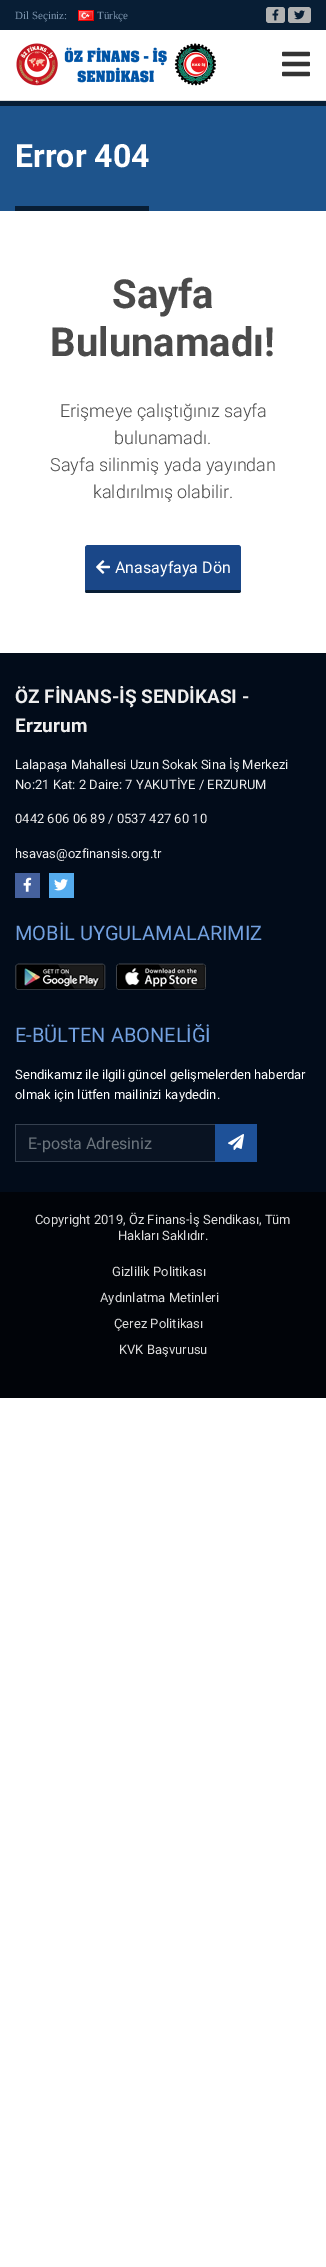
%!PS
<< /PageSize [326 2267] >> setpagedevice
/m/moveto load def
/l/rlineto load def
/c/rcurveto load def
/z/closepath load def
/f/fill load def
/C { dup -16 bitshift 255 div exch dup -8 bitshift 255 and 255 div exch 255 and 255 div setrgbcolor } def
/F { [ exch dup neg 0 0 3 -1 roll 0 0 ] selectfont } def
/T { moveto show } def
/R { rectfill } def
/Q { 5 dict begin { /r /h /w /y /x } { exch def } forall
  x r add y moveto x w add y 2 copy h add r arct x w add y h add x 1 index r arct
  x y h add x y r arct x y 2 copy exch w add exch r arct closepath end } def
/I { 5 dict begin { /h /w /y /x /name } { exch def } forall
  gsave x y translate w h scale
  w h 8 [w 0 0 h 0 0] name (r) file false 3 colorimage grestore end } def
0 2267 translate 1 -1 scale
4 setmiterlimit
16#FFFFFF C
0 0 326 2267 R
16#081E35 C
0 0 326 30 R
/LiberationSerif-Regular 11 F
16#7B93AC C
(Dil Seçiniz:) 15 19 T
(1.rgb) 78 10 16 11 I
(Türkçe) 97 19 T
16#B2B2B2 C
266 7 19 16 3 Q f
(2.rgb) 272 9 7 12 I
288 7 23 16 3 Q f
(3.rgb) 294 10 11 10 I
16#DDDDDD C
0 100 326 1 R
(4.rgb) 16 43 200 43 I
(5.rgb) 282 51 28 26 I
16#1E548C C
0 106 326 105 R
16#081E35 C
0 101 326 5 R
15 206 134 5 R
/Roboto-Bold 32 F
16#FFFFFF C
(Error 404) 15 167 T
/Roboto-Bold 40 F
16#4A4A4A C
(Sayfa) 112 308 T
(Bulunamadı!) 50 356 T
/Roboto-Light 18 F
(Erişmeye çalıştığınız sayfa) 60 417 T
(bulunamadı.) 114 444 T
(Sayfa silinmiş yada yayından) 50 471 T
(kaldırılmış olabilir.) 93 498 T
16#1A4788 C
85 545 156 48 3 Q f
16#081E35 C
88 593 m 151 0 l 2 -1 l -1 -2 l -154 0 l -1 2 l 1 1 2 1 3 1 c z f
(6.rgb) 96 560 14 14 I
/Roboto-Regular 16 F
16#FFFFFF C
(Anasayfaya Dön) 115 573 T
16#020C1A C
0 653 326 539 R
/Roboto-Bold 19 F
16#EEEEEE C
(ÖZ FİNANS-İŞ SENDİKASI -) 15 703 T
(Erzurum) 15 732 T
/Roboto-Regular 13 F
(Lalapaşa Mahallesi Uzun Sokak Sina İş Merkezi) 15 769 T
(No:21 Kat: 2 Daire: 7 YAKUTİYE / ERZURUM) 15 789 T
(0442 606 06 89 / 0537 427 60 10) 15 823 T
(hsavas@ozfinansis.org.tr) 15 858 T
16#45619D C
15 873 25 25 R
(7.rgb) 23 877 9 15 I
16#55ACEE C
49 873 25 25 R
(8.rgb) 54 879 14 12 I
/Roboto-Regular 20 F
16#73A1E0 C
(MOBİL UYGULAMALARIMIZ) 15 940 T
(9.rgb) 15 963 91 27 I
(10.rgb) 116 963 90 27 I
(E-BÜLTEN ABONELİĞİ) 15 1042 T
/Roboto-Regular 13 F
16#FFFFFF C
(Sendikamız ile ilgili güncel gelişmelerden haberdar) 15 1079 T
(olmak için lütfen mailinizi kaydedin.) 15 1099 T
16#091322 C
16 1125 199 36 R
16#35404F C
15 1124 200 1 R
15 1161 200 1 R
15 1124 1 38 R
/Roboto-Regular 16 F
16#6C757D C
(E-posta Adresiniz) 28 1149 T
16#1E5198 C
215 1124 42 38 R
(11.rgb) 228 1134 16 16 I
16#010409 C
0 1192 326 206 R
/Roboto-Regular 13 F
16#DDDDDD C
(Copyright 2019, Öz Finans-İş Sendikası, Tüm) 35 1224 T
(Hakları Saklıdır.) 118 1240 T
(Gizlilik Politikası) 112 1276 T
(Aydınlatma Metinleri) 100 1302 T
(Çerez Politikası) 114 1328 T
(KVK Başvurusu) 119 1354 T
showpage
